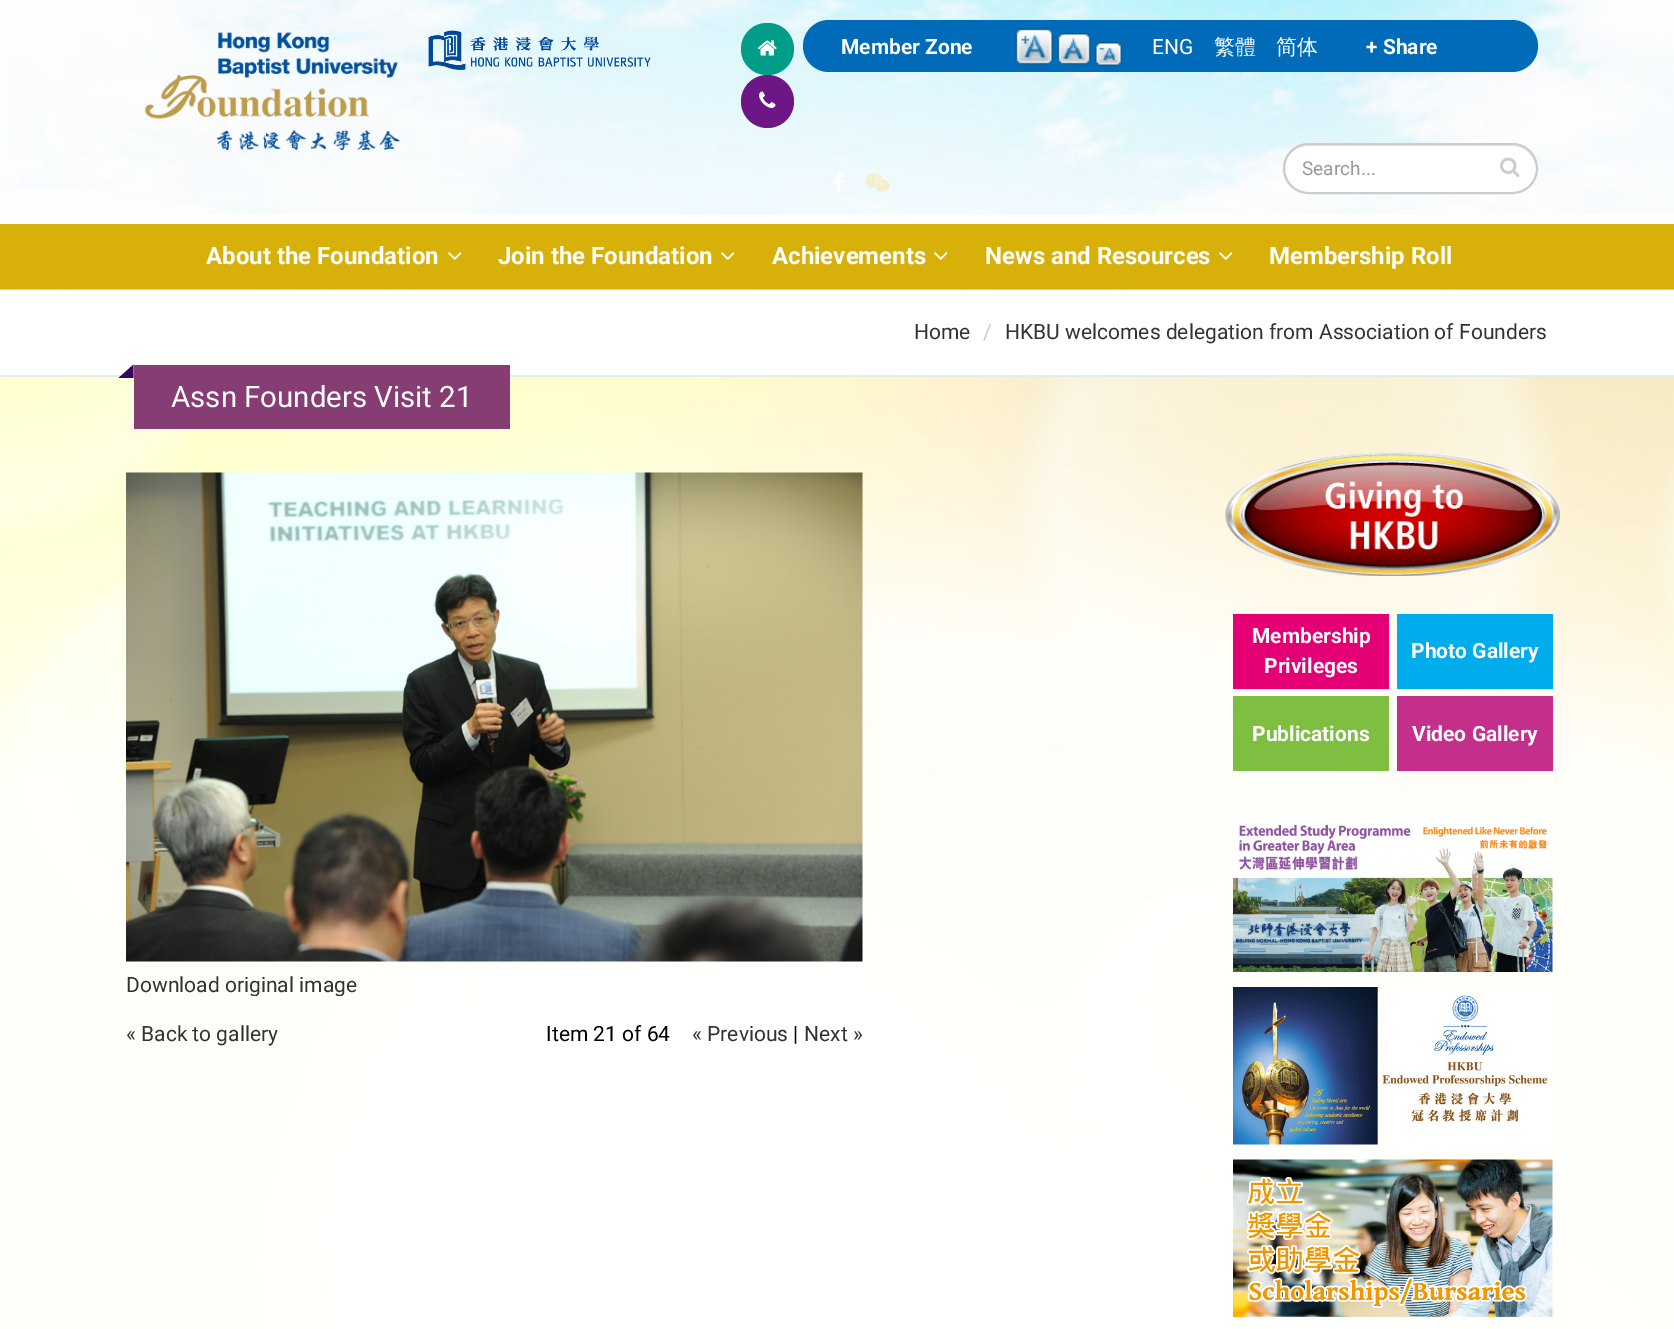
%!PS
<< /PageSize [1674 1329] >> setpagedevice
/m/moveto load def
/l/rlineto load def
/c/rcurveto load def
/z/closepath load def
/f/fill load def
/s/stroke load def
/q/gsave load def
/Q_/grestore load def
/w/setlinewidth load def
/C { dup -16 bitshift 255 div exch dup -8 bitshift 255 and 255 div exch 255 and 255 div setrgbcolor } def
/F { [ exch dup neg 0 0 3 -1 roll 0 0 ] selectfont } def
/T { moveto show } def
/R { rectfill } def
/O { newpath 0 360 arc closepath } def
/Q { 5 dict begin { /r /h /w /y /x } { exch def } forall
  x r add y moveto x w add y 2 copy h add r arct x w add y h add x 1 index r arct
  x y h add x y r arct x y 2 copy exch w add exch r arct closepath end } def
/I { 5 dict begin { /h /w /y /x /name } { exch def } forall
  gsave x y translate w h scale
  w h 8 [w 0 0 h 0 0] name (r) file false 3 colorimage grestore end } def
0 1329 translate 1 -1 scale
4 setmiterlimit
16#FFFFFF C
0 0 1674 1329 R
(1.rgb) 0 0 1674 215 I
(2.rgb) 144 32 256 118 I
(3.rgb) 428 30 223 40 I
16#009D88 C
741 23 53 52 26 Q f
(4.rgb) 757 40 20 16 I
16#6D1685 C
767.5 101.5 26.5 O f
(5.rgb) 759 91 17 17 I
16#006CB9 C
803 20 735 52 26 Q f
/Roboto-Bold 21 F
16#FFFFFF C
(Member Zone) 841 54 T
(6.rgb) 1015 28 38 37 I
(7.rgb) 1057 33 34 32 I
(8.rgb) 1095 42 27 24 I
/Roboto-Regular 21 F
(ENG) 1152 54 T
/WenQuanYiZenHei-Medium 21 F
(繁體) 1214 54 T
(简体) 1276 54 T
/Roboto-Bold 21 F
(+ Share) 1366 54 T
(9.rgb) 833 172 11 20 I
(10.rgb) 865 173 25 20 I
1283 143 255 51 25.5 Q f
16#ECECEC C
1308 146 m 204 0 l 13 0 23 10 24 23 c 0 -1 l 0 -13 -11 -24 -24 -24 c -204 0 l -13 0 -24 11 -24 24 c 0 1 l 1 -13 11 -23 24 -23 c z f
16#CCCCCC C
2 w
1284 144 253 49 24.5 Q s
/Roboto-Regular 19 F
16#999999 C
(Search...) 1302 175 T
(11.rgb) 1500 157 20 20 I
16#D8B00A C
0 224 1674 66 R
/Roboto-Bold 24 F
16#FFFFFF C
(About the Foundation) 206 264 T
(12.rgb) 448 252 14 8 I
(Join the Foundation) 498 264 T
(12.rgb) 721 252 14 8 I
(Achievements) 772 264 T
(12.rgb) 934 252 14 8 I
(News and Resources) 985 264 T
(12.rgb) 1219 252 14 8 I
(Membership Roll) 1269 264 T
(13.rgb) 0 289 1674 1040 I
0 290 1674 85 R
16#E0EDED C
0 375 1674 2 R
/Roboto-Regular 21 F
16#333333 C
(Home) 914 339 T
16#CCCCCC C
(/) 983 339 T
16#333333 C
(HKBU welcomes delegation from Association of Founders) 1005 339 T
16#853D74 C
134 365 376 64 R
16#3C0062 C
133.5 364.5 m 0 13.5 l -15 0 l z f
/Roboto-Regular 29.4 F
16#FFFFFF C
(Assn Founders Visit 21) 171 407 T
(14.rgb) 1225 452 335 124 I
16#E40074 C
1233 614 156 75 R
/Roboto-Bold 21 F
16#FFFFFF C
(Membership) 1252 643 T
(Privileges) 1264 673 T
16#00ADEC C
1397 614 156 75 R
16#FFFFFF C
(Photo Gallery) 1411 658 T
16#7EBF41 C
1233 696 156 75 R
16#FFFFFF C
(Publications) 1252 741 T
16#C32F8B C
1397 696 156 75 R
16#FFFFFF C
(Video Gallery) 1412 741 T
(15.rgb) 1233 816 320 156 I
(16.rgb) 1233 987 319 158 I
(17.rgb) 1233 1159 320 158 I
(18.rgb) 126 472 737 490 I
q
126 972 737 24 rectclip
/Roboto-Regular 21 F
16#333333 C
(Download original image) 126 992 T
Q_
/Roboto-Regular 21 F
16#333333 C
(« Back to gallery) 126 1041 T
16#000000 C
(Item 21 of 64) 546 1041 T
16#333333 C
(« Previous) 692 1041 T
16#000000 C
(|) 793 1041 T
16#333333 C
(Next ») 804 1041 T
showpage
